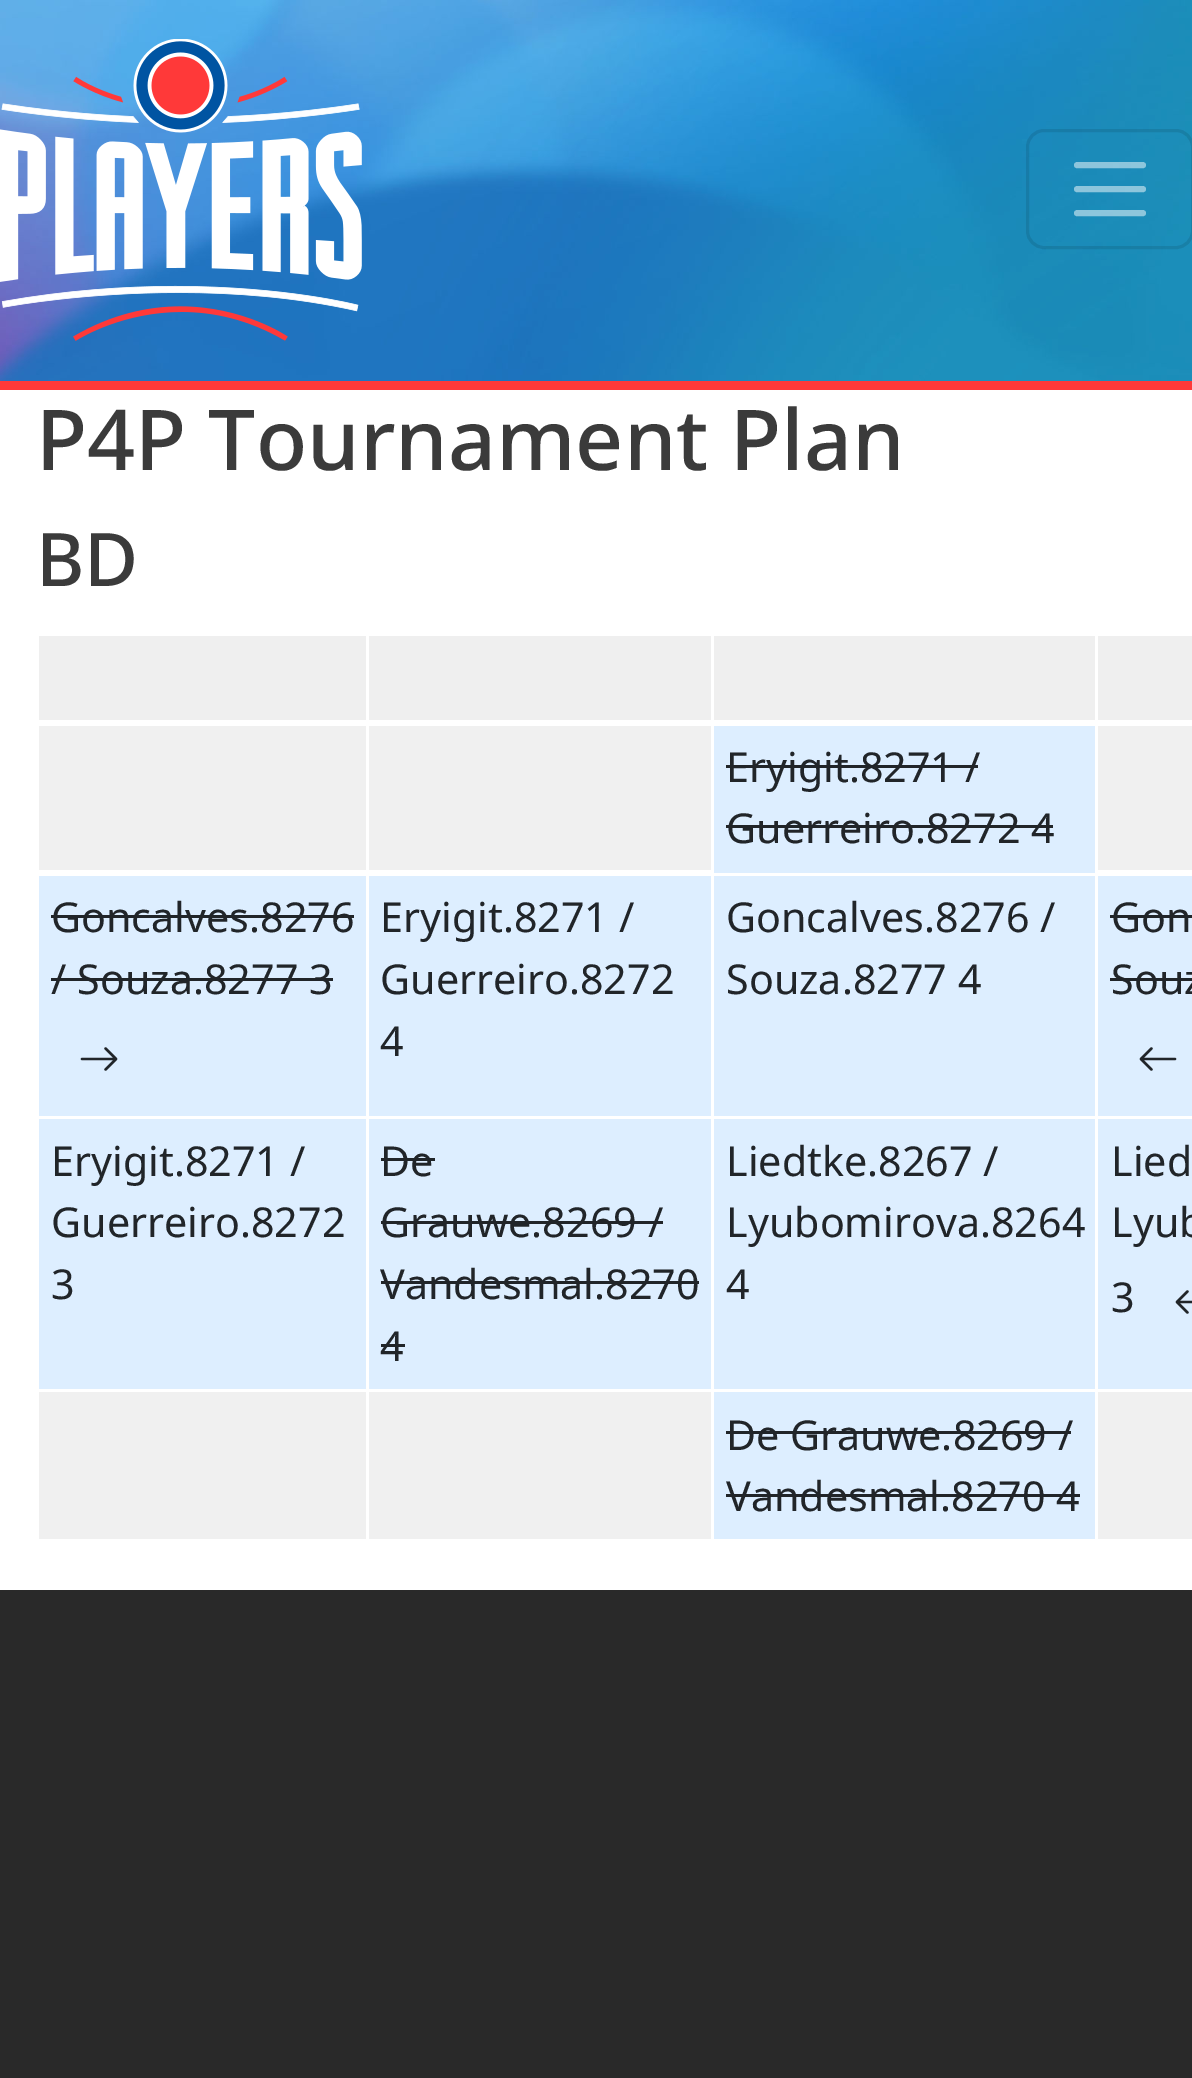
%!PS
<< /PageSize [1192 2078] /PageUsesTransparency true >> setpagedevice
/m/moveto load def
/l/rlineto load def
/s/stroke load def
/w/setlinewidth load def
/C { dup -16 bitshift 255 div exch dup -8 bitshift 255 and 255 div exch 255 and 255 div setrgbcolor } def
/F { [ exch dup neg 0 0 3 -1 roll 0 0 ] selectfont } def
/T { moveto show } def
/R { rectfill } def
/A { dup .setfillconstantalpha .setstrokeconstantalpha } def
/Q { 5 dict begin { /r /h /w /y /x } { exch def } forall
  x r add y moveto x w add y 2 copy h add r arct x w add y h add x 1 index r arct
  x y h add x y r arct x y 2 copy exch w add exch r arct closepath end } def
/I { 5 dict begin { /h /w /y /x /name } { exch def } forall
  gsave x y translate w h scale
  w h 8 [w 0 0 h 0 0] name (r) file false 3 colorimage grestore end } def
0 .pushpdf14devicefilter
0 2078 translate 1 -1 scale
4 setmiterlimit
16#292929 C
0 0 1192 2078 R
16#FFFFFF C
0 390 1192 1200 R
(1.rgb) 0 0 1192 381 I
16#FF3939 C
0 381 1192 9 R
(2.rgb) 0 39 362 302 I
0.1 A
16#000000 C
3 w
1027.5 130.5 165 117 16.5 Q s
0.5 A
16#FFFFFF C
6 w
1 setlinecap
1077 165 m 66 0 l 1077 189 m 66 0 l 1077 213 m 66 0 l s
/NotoSans-Medium 84 F
1 A
16#3B3B3B C
(P4P Tournament Plan) 36 470 T
/NotoSans-Medium 74 F
(BD) 36 586 T
16#EFEFEF C
39 636 1153 84 R
16#F0F0F0 C
39 726 1153 144 R
16#FFFFFF C
366 633 3 243 R
16#DDEEFF C
714 726 381 147 R
16#FFFFFF C
711 633 3 243 R
/NotoSans-Regular 41.25 F
16#212529 C
(Eryigit.8271 /) 726 782 T
726 765 252 3 R
(Guerreiro.8272 4) 726 843 T
726 825 327 3 R
16#FFFFFF C
1095 633 3 243 R
16#DDEEFF C
39 876 327 240 R
16#212529 C
(Goncalves.8276) 51 932 T
51 915 303 3 R
(/ Souza.8277 3) 51 994 T
51 978 282 3 R
(3.rgb) 80 1047 38 24 I
16#DDEEFF C
369 876 342 240 R
16#212529 C
(Eryigit.8271 /) 380 932 T
(Guerreiro.8272) 380 994 T
(4) 380 1056 T
16#DDEEFF C
714 876 381 240 R
16#212529 C
(Goncalves.8276 /) 726 932 T
(Souza.8277 4) 726 994 T
16#DDEEFF C
1098 876 94 240 R
16#212529 C
(Gon) 1111 932 T
1110 915 82 3 R
(Souz) 1111 994 T
1110 978 82 3 R
(4.rgb) 1139 1047 38 24 I
16#DDEEFF C
39 1119 327 270 R
16#212529 C
(Eryigit.8271 /) 51 1176 T
(Guerreiro.8272) 51 1237 T
(3) 51 1299 T
16#DDEEFF C
369 1119 342 270 R
16#212529 C
(De) 380 1176 T
381 1158 54 3 R
(Grauwe.8269 /) 380 1237 T
381 1221 282 3 R
(Vandesmal.8270) 380 1299 T
381 1281 318 3 R
(4) 380 1361 T
381 1344 24 3 R
16#DDEEFF C
714 1119 381 270 R
16#212529 C
(Liedtke.8267 /) 726 1176 T
(Lyubomirova.8264) 726 1237 T
(4) 726 1299 T
16#DDEEFF C
1098 1119 94 270 R
16#212529 C
(Lied) 1111 1176 T
(Lyub) 1111 1237 T
(3) 1111 1312 T
(5.rgb) 1175 1290 17 24 I
16#F0F0F0 C
39 1392 1153 147 R
16#FFFFFF C
366 1389 3 153 R
16#DDEEFF C
714 1392 381 147 R
16#FFFFFF C
711 1389 3 153 R
16#212529 C
(De Grauwe.8269 /) 726 1450 T
726 1431 345 3 R
(Vandesmal.8270 4) 726 1511 T
726 1494 354 3 R
16#FFFFFF C
1095 1389 3 153 R
.poppdf14devicefilter showpage
